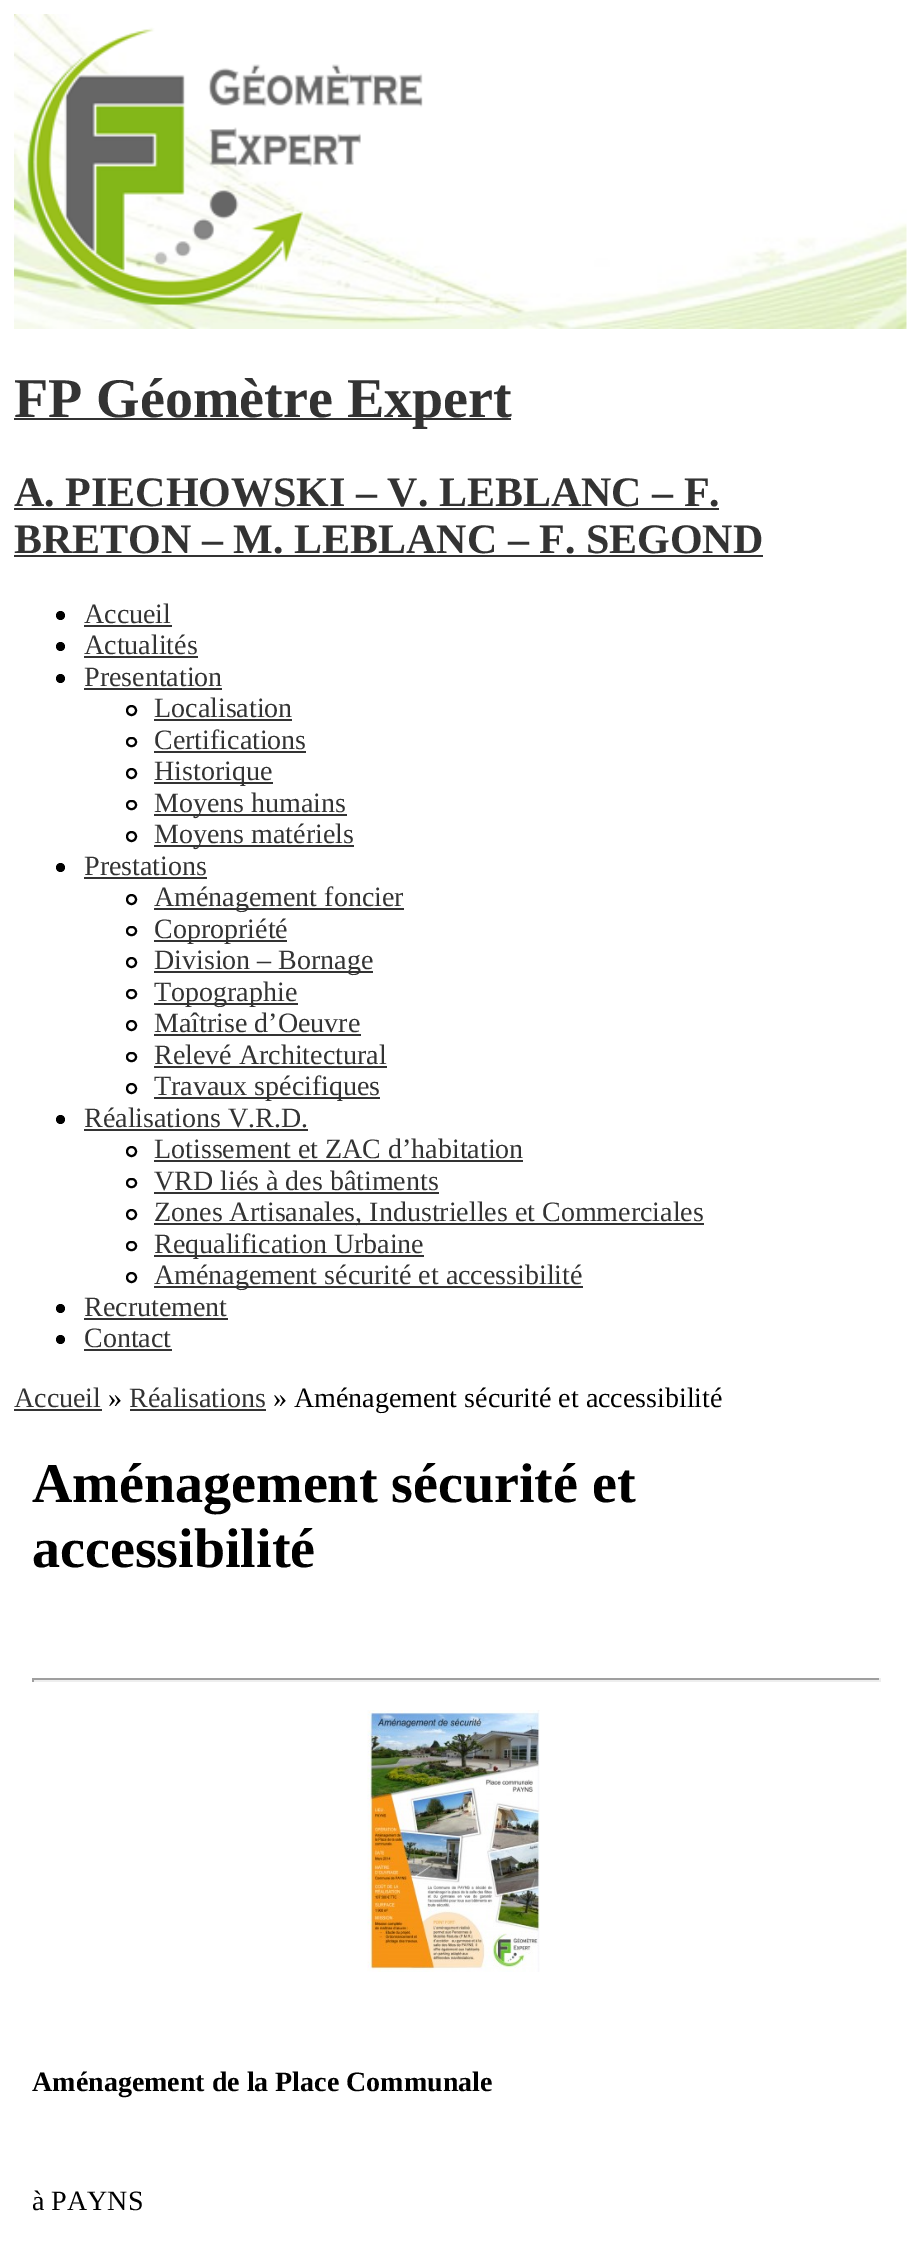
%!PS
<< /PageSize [919 2253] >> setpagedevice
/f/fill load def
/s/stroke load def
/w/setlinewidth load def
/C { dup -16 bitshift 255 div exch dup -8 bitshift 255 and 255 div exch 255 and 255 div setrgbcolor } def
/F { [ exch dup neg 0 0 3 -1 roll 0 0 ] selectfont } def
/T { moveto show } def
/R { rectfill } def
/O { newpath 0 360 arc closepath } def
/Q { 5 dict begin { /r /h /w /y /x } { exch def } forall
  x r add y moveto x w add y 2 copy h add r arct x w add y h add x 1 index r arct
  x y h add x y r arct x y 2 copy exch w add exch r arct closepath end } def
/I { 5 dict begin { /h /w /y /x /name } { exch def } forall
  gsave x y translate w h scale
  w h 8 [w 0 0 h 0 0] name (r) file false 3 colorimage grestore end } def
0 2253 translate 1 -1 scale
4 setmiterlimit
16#FFFFFF C
0 0 919 2253 R
(1.rgb) 14 14 893 315 I
(2.rgb) 27 27 396 278 I
16#333333 C
14 418 497 2 R
/LiberationSerif-Bold 56 F
(FP Géomètre Expert) 14 417 T
/LiberationSerif-Bold 42 F
(A. PIECHOWSKI – V. LEBLANC – F.) 14 506 T
14 508 705 2 R
(BRETON – M. LEBLANC – F. SEGOND) 14 553 T
14 555 749 2 R
16#000000 C
60.5 615.5 4.5 O f
/LiberationSerif-Regular 28 F
16#333333 C
(Accueil) 84 623 T
84 625 88 2 R
16#000000 C
60.5 646.5 4.5 O f
16#333333 C
(Actualités) 84 654 T
84 656 114 2 R
16#000000 C
60.5 678.5 4.5 O f
16#333333 C
(Presentation) 84 686 T
84 688 138 2 R
16#000000 C
2 w
131.5 710.5 4.5 O s
16#333333 C
(Localisation) 154 717 T
154 719 138 2 R
16#000000 C
127 738 9 8 4 Q s
16#333333 C
(Certifications) 154 749 T
154 751 152 2 R
16#000000 C
131.5 773.5 4.5 O s
16#333333 C
154 782 119 2 R
(Historique) 154 780 T
16#000000 C
127 801 9 8 4 Q s
16#333333 C
154 814 193 2 R
(Moyens humains) 154 812 T
16#000000 C
131.5 836.5 4.5 O s
16#333333 C
154 845 200 2 R
(Moyens matériels) 154 843 T
16#000000 C
60.5 867.5 4.5 O f
16#333333 C
(Prestations) 84 875 T
84 877 123 2 R
16#000000 C
131.5 899.5 4.5 O s
16#333333 C
154 908 250 2 R
(Aménagement foncier) 154 906 T
16#000000 C
127 927 9 8 4 Q s
16#333333 C
154 940 133 2 R
(Copropriété) 154 938 T
16#000000 C
131.5 962.5 4.5 O s
16#333333 C
154 971 219 2 R
(Division – Bornage) 154 969 T
16#000000 C
127 990 9 8 4 Q s
16#333333 C
154 1003 144 2 R
(Topographie) 154 1001 T
16#000000 C
131.5 1025.5 4.5 O s
16#333333 C
(Maîtrise d’Oeuvre) 154 1032 T
154 1034 207 2 R
16#000000 C
127 1053 9 8 4 Q s
16#333333 C
(Relevé Architectural) 154 1064 T
154 1066 233 2 R
16#000000 C
131.5 1088.5 4.5 O s
16#333333 C
154 1097 226 2 R
(Travaux spécifiques) 154 1095 T
16#000000 C
60.5 1119.5 4.5 O f
16#333333 C
(Réalisations V.R.D.) 84 1127 T
84 1129 224 2 R
16#000000 C
131.5 1151.5 4.5 O s
16#333333 C
(Lotissement et ZAC d’habitation) 154 1158 T
154 1160 369 2 R
16#000000 C
127 1179 9 8 4 Q s
16#333333 C
(VRD liés à des bâtiments) 154 1190 T
154 1192 285 2 R
16#000000 C
131.5 1214.5 4.5 O s
16#333333 C
154 1223 550 2 R
(Zones Artisanales, Industrielles et Commerciales) 154 1221 T
16#000000 C
127 1242 9 8 4 Q s
16#333333 C
154 1255 270 2 R
(Requalification Urbaine) 154 1253 T
16#000000 C
131.5 1277.5 4.5 O s
16#333333 C
154 1286 429 2 R
(Aménagement sécurité et accessibilité) 154 1284 T
16#000000 C
60.5 1308.5 4.5 O f
16#333333 C
(Recrutement) 84 1316 T
84 1318 144 2 R
16#000000 C
60.5 1339.5 4.5 O f
16#333333 C
(Contact) 84 1347 T
84 1349 88 2 R
(Accueil) 14 1407 T
14 1409 88 2 R
16#000000 C
(») 108 1407 T
16#333333 C
(Réalisations) 129 1407 T
130 1409 136 2 R
16#000000 C
(» Aménagement sécurité et accessibilité) 273 1407 T
/LiberationSerif-Bold 56 F
(Aménagement sécurité et) 32 1502 T
(accessibilité) 32 1567 T
16#9F9F9F C
32 1678 848 2 R
16#EEEEEE C
879 1678 2 4 R
32 1680 848 2 R
16#9F9F9F C
32 1678 2 4 R
(3.rgb) 367 1710 173 262 I
/LiberationSerif-Bold 28 F
16#000000 C
(Aménagement de la Place Communale) 32 2091 T
/LiberationSerif-Regular 28 F
(à PAYNS) 32 2210 T
showpage
